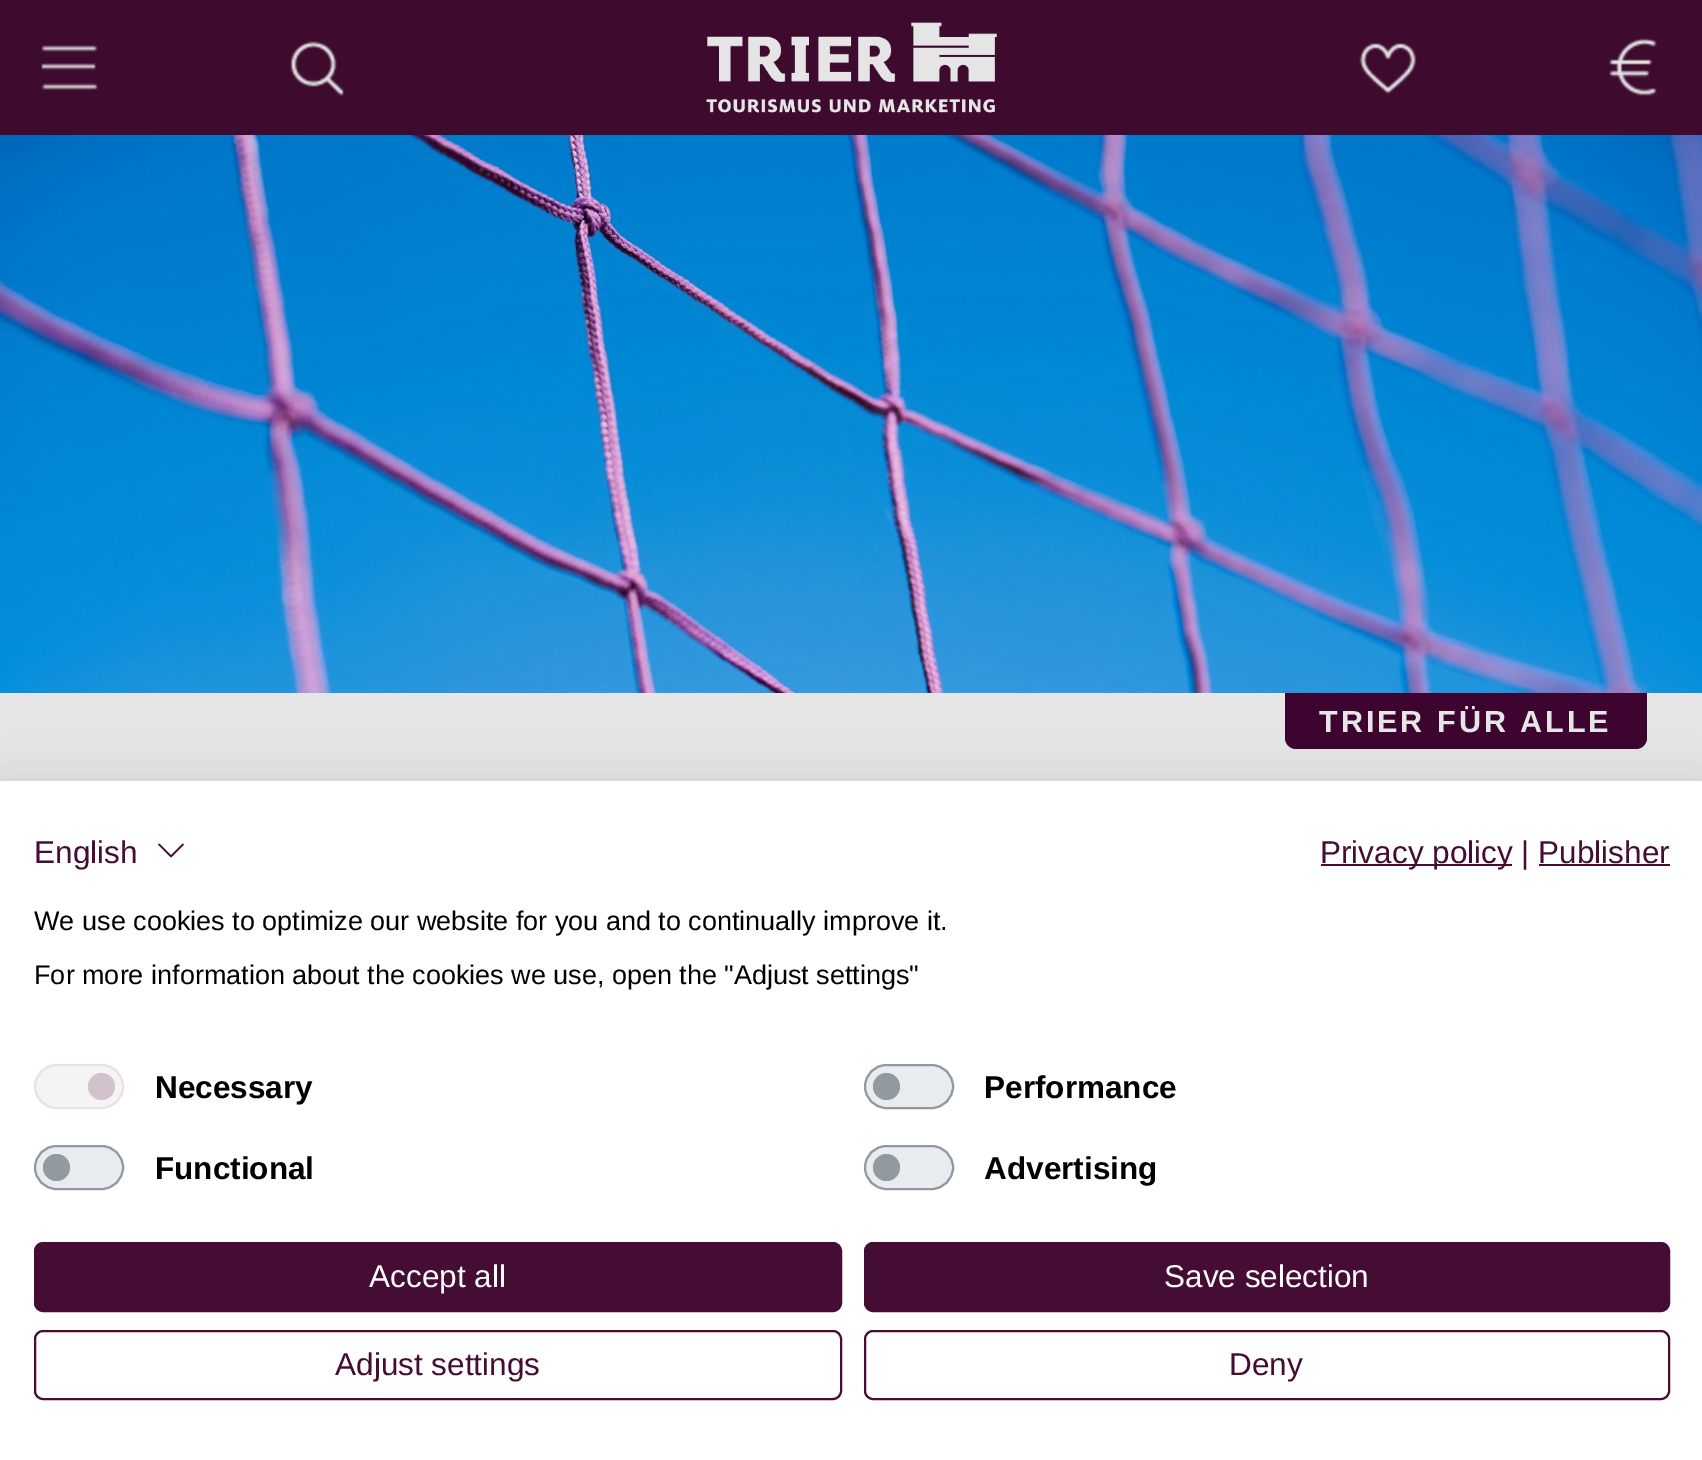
%!PS
<< /PageSize [1702 1460] /PageUsesTransparency true >> setpagedevice
/m/moveto load def
/l/rlineto load def
/c/rcurveto load def
/z/closepath load def
/f/fill load def
/s/stroke load def
/q/gsave load def
/Q_/grestore load def
/w/setlinewidth load def
/C { dup -16 bitshift 255 div exch dup -8 bitshift 255 and 255 div exch 255 and 255 div setrgbcolor } def
/F { [ exch dup neg 0 0 3 -1 roll 0 0 ] selectfont } def
/T { moveto show } def
/R { rectfill } def
/A { dup .setfillconstantalpha .setstrokeconstantalpha } def
/O { newpath 0 360 arc closepath } def
/Q { 5 dict begin { /r /h /w /y /x } { exch def } forall
  x r add y moveto x w add y 2 copy h add r arct x w add y h add x 1 index r arct
  x y h add x y r arct x y 2 copy exch w add exch r arct closepath end } def
/S { 12 dict begin { /a /b /q /h /w /y /x } { exch def } forall gsave /was 0 def
  9 -2 -9 { dup b mul 4 div /e exch def 1 sub .425 mul 2.718 exch exp 1 add a .99 .min exch div /now exch def
    1 1 now sub 1 was sub div sub A /was now def
    w h .min e 2 mul add 0 gt { x e sub y e sub w e 2 mul add h e 2 mul add
      q e add b .6 mul add w h .min 2 div e add .min 0 .max Q fill } if } for grestore end } def
/I { 5 dict begin { /h /w /y /x /name } { exch def } forall
  gsave x y translate w h scale
  w h 8 [w 0 0 h 0 0] name (r) file false 3 colorimage grestore end } def
0 .pushpdf14devicefilter
0 1460 translate 1 -1 scale
4 setmiterlimit
16#E6E6E6 C
0 0 1702 1460 R
16#3E0B2F C
0 0 1702 135 R
(1.rgb) 41 45 57 45 I
(2.rgb) 290 41 54 55 I
(3.rgb) 706 22 291 91 I
(4.rgb) 1359 43 58 51 I
(5.rgb) 1608 38 49 58 I
(6.rgb) 0 135 1702 558 I
16#3C042E C
1285 693 m 362 0 l 0 45 l 0 6 -5 11 -11 11 c -340 0 l -6 0 -11 -5 -11 -11 c z f
/LiberationSans-Bold 30.5 F
16#E6E6E6 C
1319 732 m 3 0 (TRIER FÜR ALLE) ashow
16#000000 C
0 781 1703 679 0 27 .1 S
16#FFFFFF C
0 781 1702 679 R
/LiberationSans-Regular 31.5 F
16#450C34 C
(English) 34 863 T
(7.rgb) 158 843 26 15 I
1321 864 191 2 R
(Privacy policy | Publisher) 1320 863 T
1539 864 131 2 R
/LiberationSans-Regular 27 F
16#000000 C
(We use cookies to optimize our website for you and to continually improve it.) 34 930 T
(For more information about the cookies we use, open the "Adjust settings") 34 984 T
16#F6F3F5 C
34 1064 90 45 22.5 Q f
16#D1C2CC C
101.5 1086.5 13.5 O f
16#E8E1E6 C
2 w
35 1065 88 43 21.5 Q s
/LiberationSans-Bold 31.5 F
16#000000 C
(Necessary) 155 1098 T
16#E9ECEF C
864 1064 90 45 22.5 Q f
16#92999F C
886.5 1086.5 13.5 O f
0.7 A
16#6C757D C
865 1065 88 43 21.5 Q s
1 A
16#000000 C
(Performance) 984 1098 T
16#E9ECEF C
34 1145 90 45 22.5 Q f
16#92999F C
56.5 1167.5 13.5 O f
0.7 A
16#6C757D C
35 1146 88 43 21.5 Q s
1 A
16#000000 C
(Functional) 155 1179 T
16#E9ECEF C
864 1145 90 45 22.5 Q f
16#92999F C
886.5 1167.5 13.5 O f
0.7 A
16#6C757D C
865 1146 88 43 21.5 Q s
1 A
16#000000 C
(Advertising) 984 1179 T
16#450C34 C
35 1243 806 68 8 Q q f Q_
s
/LiberationSans-Regular 31.5 F
16#FFFFFF C
(Accept all) 369 1287 T
16#450C34 C
865 1243 804 68 8 Q q f Q_
s
16#FFFFFF C
(Save selection) 1164 1287 T
16#450C34 C
35 1331 806 68 8 Q s
(Adjust settings) 335 1375 T
865 1331 804 68 8 Q s
(Deny) 1229 1375 T
.poppdf14devicefilter showpage
